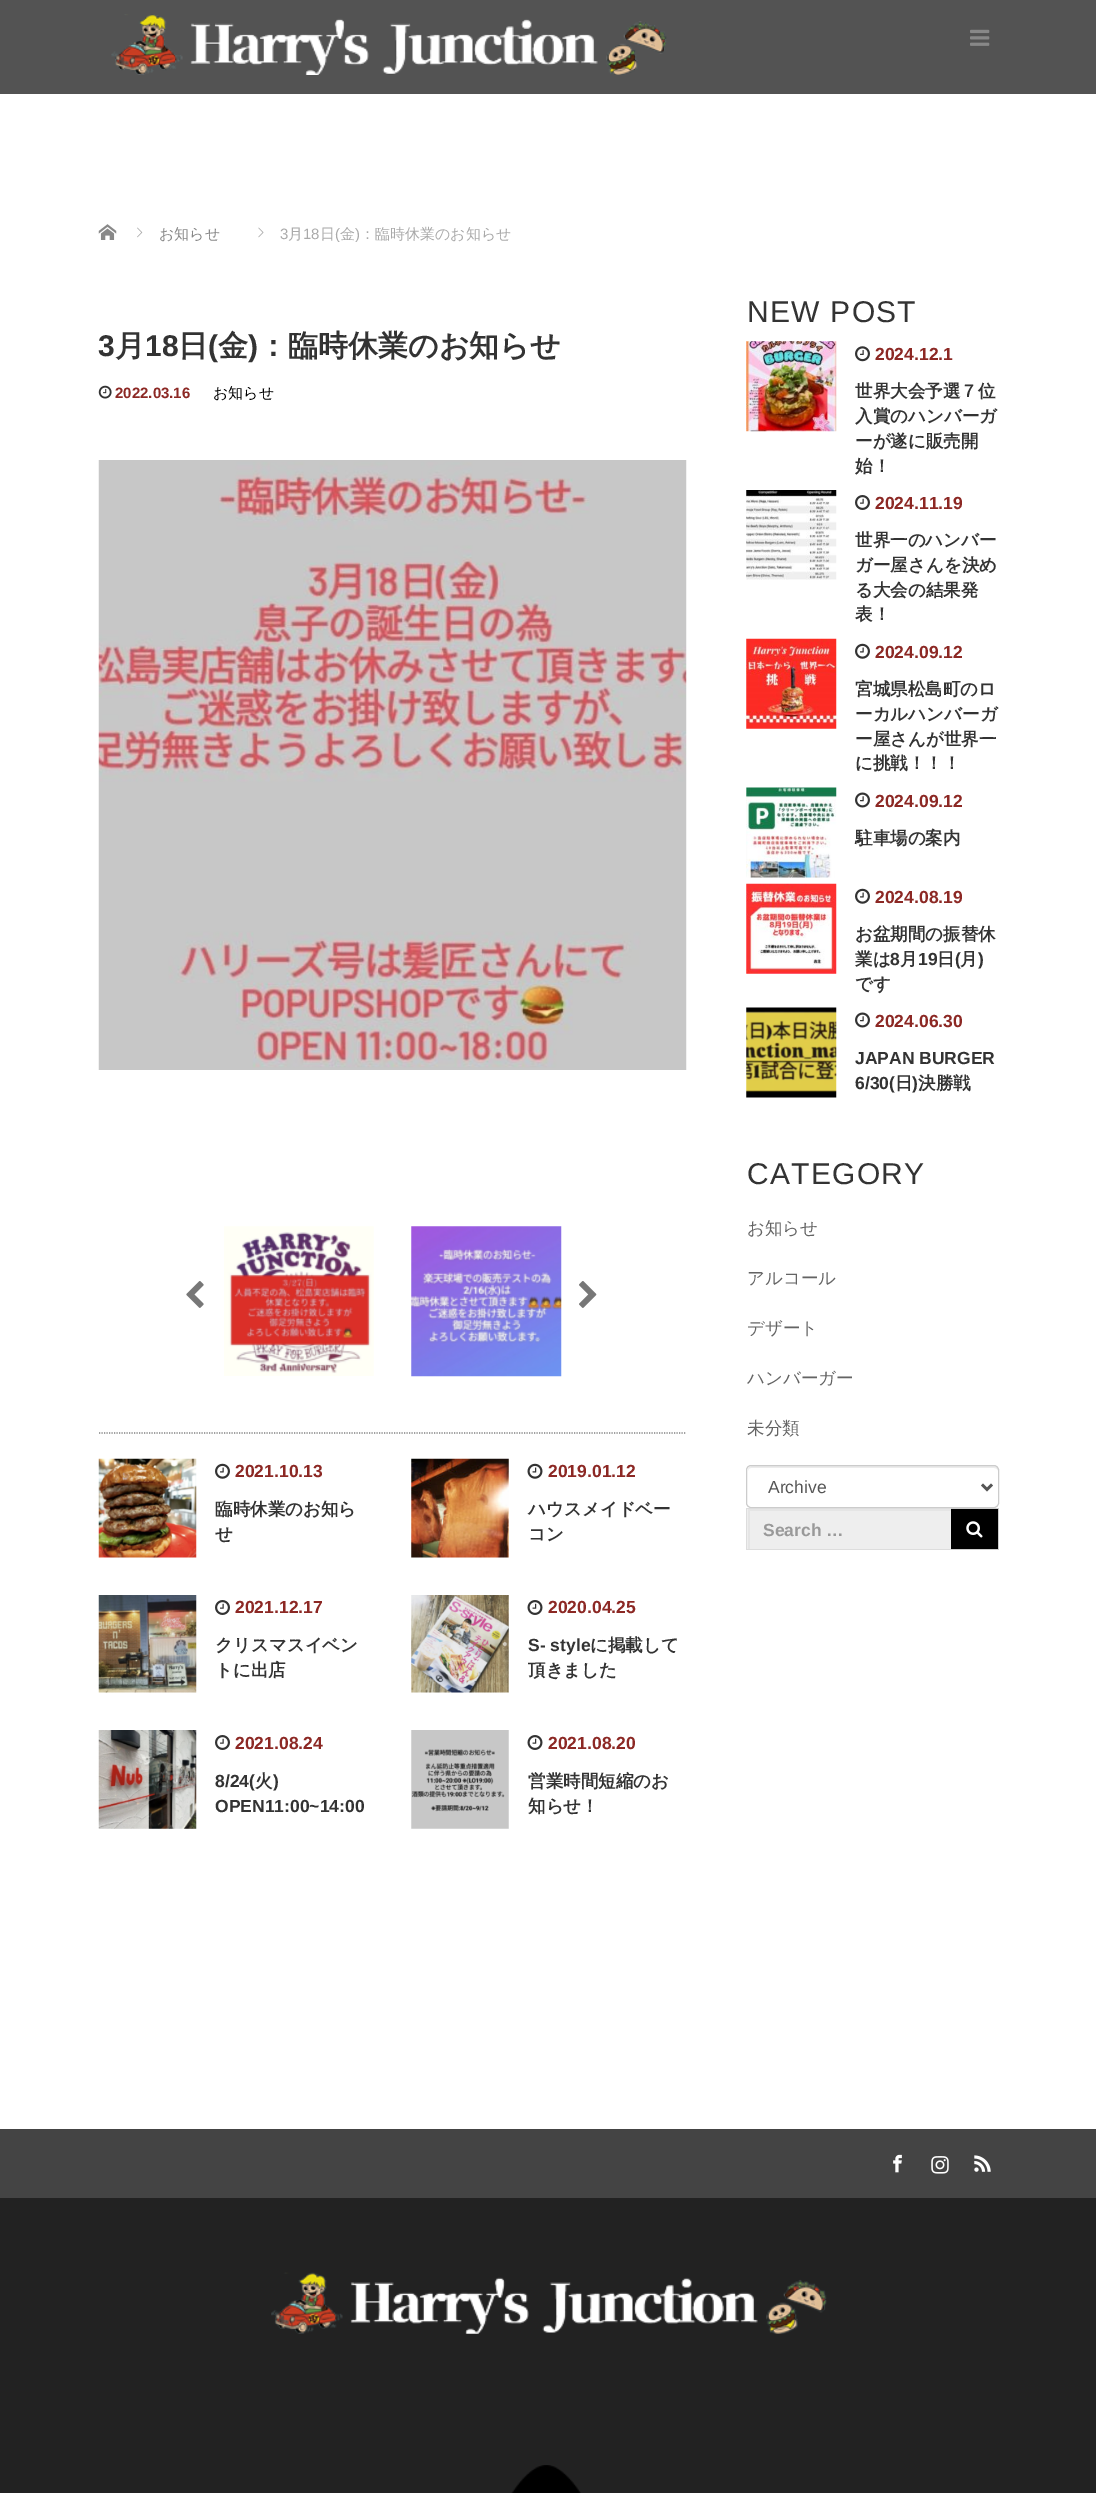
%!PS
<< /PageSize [1096 2493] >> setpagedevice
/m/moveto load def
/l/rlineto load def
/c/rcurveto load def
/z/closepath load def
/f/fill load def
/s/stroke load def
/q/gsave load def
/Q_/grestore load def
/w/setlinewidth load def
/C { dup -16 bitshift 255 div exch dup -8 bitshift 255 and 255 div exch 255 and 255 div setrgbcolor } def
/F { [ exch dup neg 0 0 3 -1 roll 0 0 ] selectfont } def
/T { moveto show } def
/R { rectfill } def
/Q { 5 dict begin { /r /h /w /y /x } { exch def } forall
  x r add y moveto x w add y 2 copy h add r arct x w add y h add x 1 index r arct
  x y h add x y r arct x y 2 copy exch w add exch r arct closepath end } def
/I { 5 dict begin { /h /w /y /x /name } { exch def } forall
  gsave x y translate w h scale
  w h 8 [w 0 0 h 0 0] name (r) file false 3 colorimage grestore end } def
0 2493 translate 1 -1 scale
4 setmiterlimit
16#FFFFFF C
0 0 1096 2493 R
16#535353 C
0 0 1096 94 R
(1.rgb) 111 14 556 61 I
(2.rgb) 970 29 20 17 I
(3.rgb) 98 224 19 16 I
(4.rgb) 137 227 6 11 I
/WenQuanYiZenHei-Medium 15 F
16#888888 C
(お知らせ) 159 239 T
(5.rgb) 258 227 6 11 I
/LiberationSans-Regular 15 F
16#AAAAAA C
(3) 280 239 T
/WenQuanYiZenHei-Medium 15 F
(月) 288 239 T
/LiberationSans-Regular 15 F
(18) 303 239 T
/WenQuanYiZenHei-Medium 15 F
(日) 320 239 T
/LiberationSans-Regular 15 F
(\() 335 239 T
/WenQuanYiZenHei-Medium 15 F
(金) 340 239 T
/LiberationSans-Regular 15 F
(\)) 355 239 T
/WenQuanYiZenHei-Medium 15 F
(：臨時休業のお知らせ) 360 239 T
/LiberationSans-Bold 30 F
16#333333 C
(3) 98 356 T
/WenQuanYiZenHei-Bold 30 F
(月) 115 356 T
/LiberationSans-Bold 30 F
(18) 145 356 T
/WenQuanYiZenHei-Bold 30 F
(日) 178 356 T
/LiberationSans-Bold 30 F
(\() 208 356 T
/WenQuanYiZenHei-Bold 30 F
(金) 218 356 T
/LiberationSans-Bold 30 F
(\)) 248 356 T
/WenQuanYiZenHei-Bold 30 F
(：臨時休業のお知らせ) 258 356 T
(6.rgb) 98 385 14 14 I
/LiberationSans-Bold 15 F
16#8C2824 C
(2022.03.16) 115 398 T
/WenQuanYiZenHei-Medium 15 F
16#000000 C
(お知らせ) 213 398 T
(7.rgb) 98 460 589 610 I
(8.rgb) 186 1281 18 27 I
(9.rgb) 224 1226 150 150 I
(10.rgb) 411 1226 151 151 I
(11.rgb) 579 1281 18 27 I
16#808080 C
1.2 w
[1.25 1.25] 0 setdash
99 1433 m 587 0 l s
(12.rgb) 98 1458 99 100 I
(13.rgb) 215 1463 15 16 I
/LiberationSans-Bold 17.5 F
16#8C2824 C
(2021.10.13) 235 1477 T
/WenQuanYiZenHei-Bold 17.5 F
16#333333 C
(臨時休業のお知ら) 215 1515 T
(せ) 215 1540 T
(14.rgb) 411 1458 98 100 I
(15.rgb) 527 1463 16 16 I
/LiberationSans-Bold 17.5 F
16#8C2824 C
(2019.01.12) 548 1477 T
/WenQuanYiZenHei-Bold 17.5 F
16#333333 C
(ハウスメイドベー) 528 1515 T
(コン) 528 1540 T
(16.rgb) 98 1595 99 98 I
(17.rgb) 215 1600 15 15 I
/LiberationSans-Bold 17.5 F
16#8C2824 C
(2021.12.17) 235 1613 T
/WenQuanYiZenHei-Bold 17.5 F
16#333333 C
(クリスマスイベン) 215 1651 T
(トに出店) 215 1676 T
(18.rgb) 411 1595 98 98 I
(19.rgb) 527 1600 16 15 I
/LiberationSans-Bold 17.5 F
16#8C2824 C
(2020.04.25) 548 1613 T
16#333333 C
(S- style) 528 1651 T
/WenQuanYiZenHei-Bold 17.5 F
(に掲載して) 590 1651 T
(頂きました) 528 1676 T
(20.rgb) 98 1730 99 99 I
(17.rgb) 215 1735 15 15 I
/LiberationSans-Bold 17.5 F
16#8C2824 C
(2021.08.24) 235 1749 T
16#333333 C
(8/24\() 215 1787 T
/WenQuanYiZenHei-Bold 17.5 F
(火) 255 1787 T
/LiberationSans-Bold 17.5 F
(\)) 273 1787 T
(OPEN11:00~14:00) 215 1812 T
(21.rgb) 411 1730 98 99 I
(19.rgb) 527 1735 16 15 I
16#8C2824 C
(2021.08.20) 548 1749 T
/WenQuanYiZenHei-Bold 17.5 F
16#333333 C
(営業時間短縮のお) 528 1787 T
(知らせ！) 528 1812 T
/LiberationSans-Regular 30 F
747 322 m 1.25 0 (NEW POST) ashow
(22.rgb) 746 341 91 91 I
(23.rgb) 855 346 15 16 I
/LiberationSans-Bold 17.5 F
16#8C2824 C
(2024.12.1) 875 360 T
/WenQuanYiZenHei-Bold 17.5 F
16#333333 C
(世界大会予選７位) 855 397 T
(入賞のハンバーガ) 855 422 T
(ーが遂に販売開) 855 447 T
(始！) 855 472 T
(24.rgb) 746 490 91 90 I
(17.rgb) 855 495 15 15 I
/LiberationSans-Bold 17.5 F
16#8C2824 C
(2024.11.19) 875 509 T
/WenQuanYiZenHei-Bold 17.5 F
16#333333 C
(世界一のハンバー) 855 546 T
(ガー屋さんを決め) 855 571 T
(る大会の結果発) 855 596 T
(表！) 855 620 T
(25.rgb) 746 638 91 91 I
(13.rgb) 855 643 15 16 I
/LiberationSans-Bold 17.5 F
16#8C2824 C
(2024.09.12) 875 658 T
/WenQuanYiZenHei-Bold 17.5 F
16#333333 C
(宮城県松島町のロ) 855 695 T
(ーカルハンバーガ) 855 720 T
(ー屋さんが世界一) 855 745 T
(に挑戦！！！) 855 769 T
(26.rgb) 746 787 91 91 I
(27.rgb) 855 792 15 16 I
/LiberationSans-Bold 17.5 F
16#8C2824 C
(2024.09.12) 875 807 T
/WenQuanYiZenHei-Bold 17.5 F
16#333333 C
(駐車場の案内) 855 844 T
(28.rgb) 746 883 91 91 I
(13.rgb) 855 888 15 16 I
/LiberationSans-Bold 17.5 F
16#8C2824 C
(2024.08.19) 875 903 T
/WenQuanYiZenHei-Bold 17.5 F
16#333333 C
(お盆期間の振替休) 855 940 T
(業は) 855 965 T
/LiberationSans-Bold 17.5 F
(8) 890 965 T
/WenQuanYiZenHei-Bold 17.5 F
(月) 900 965 T
/LiberationSans-Bold 17.5 F
(19) 918 965 T
/WenQuanYiZenHei-Bold 17.5 F
(日) 937 965 T
/LiberationSans-Bold 17.5 F
(\() 955 965 T
/WenQuanYiZenHei-Bold 17.5 F
(月) 960 965 T
/LiberationSans-Bold 17.5 F
(\)) 978 965 T
/WenQuanYiZenHei-Bold 17.5 F
(です) 855 990 T
(29.rgb) 746 1007 91 91 I
(27.rgb) 855 1012 15 16 I
/LiberationSans-Bold 17.5 F
16#8C2824 C
(2024.06.30) 875 1027 T
16#333333 C
(JAPAN BURGER) 855 1064 T
(6/30\() 855 1089 T
/WenQuanYiZenHei-Bold 17.5 F
(日) 895 1089 T
/LiberationSans-Bold 17.5 F
(\)) 912 1089 T
/WenQuanYiZenHei-Bold 17.5 F
(決勝戦) 918 1089 T
/LiberationSans-Regular 30 F
747 1184 m 1.25 0 (CATEGORY) ashow
/WenQuanYiZenHei-Medium 17.5 F
16#646464 C
(お知らせ) 747 1234 T
(アルコール) 747 1284 T
(デザート) 747 1334 T
(ハンバーガー) 747 1384 T
(未分類) 747 1434 T
16#ECECEC C
751 1468 m 243 0 l 2 0 4 1 4 3 c 0 -1 l 0 -2 -2 -4 -4 -4 c -242 0 l -2 0 -4 2 -4 4 c 0 1 l 0 -2 1 -3 3 -3 c z f
16#CCCCCC C
1 w
[] 0 setdash
746.5 1465.5 252 42 4.5 Q s
16#555555 C
2.5 w
982 1484.5 m 5 5 l 5 -5 l s
/LiberationSans-Regular 17.5 F
(Archive) 768 1493 T
16#EEEEEE C
747 1509 204 40 R
q
748 1509 205 40 rectclip
16#E5E5E5 C
624 1385 m 452 0 l 0 287 l -452 0 l z 750 1511 m 205 0 l 0 40 l -205 0 l z eofill
Q_
16#DDDDDD C
746 1508 207 1 R
746 1549 207 1 R
746 1508 1 42 R
/LiberationSans-Bold 17.5 F
16#999999 C
(Search …) 763 1536 T
16#000000 C
951 1509 47 40 R
16#CCCCCC C
951 1508 48 1 R
998 1508 1 42 R
951 1549 48 1 R
(30.rgb) 966 1521 17 17 I
16#444444 C
0 2129 1096 69 R
(31.rgb) 893 2154 9 19 I
(32.rgb) 931 2156 18 18 I
(33.rgb) 974 2155 17 17 I
16#222222 C
0 2198 1096 295 R
(34.rgb) 271 2272 556 62 I
(35.rgb) 511 2465 70 28 I
showpage
